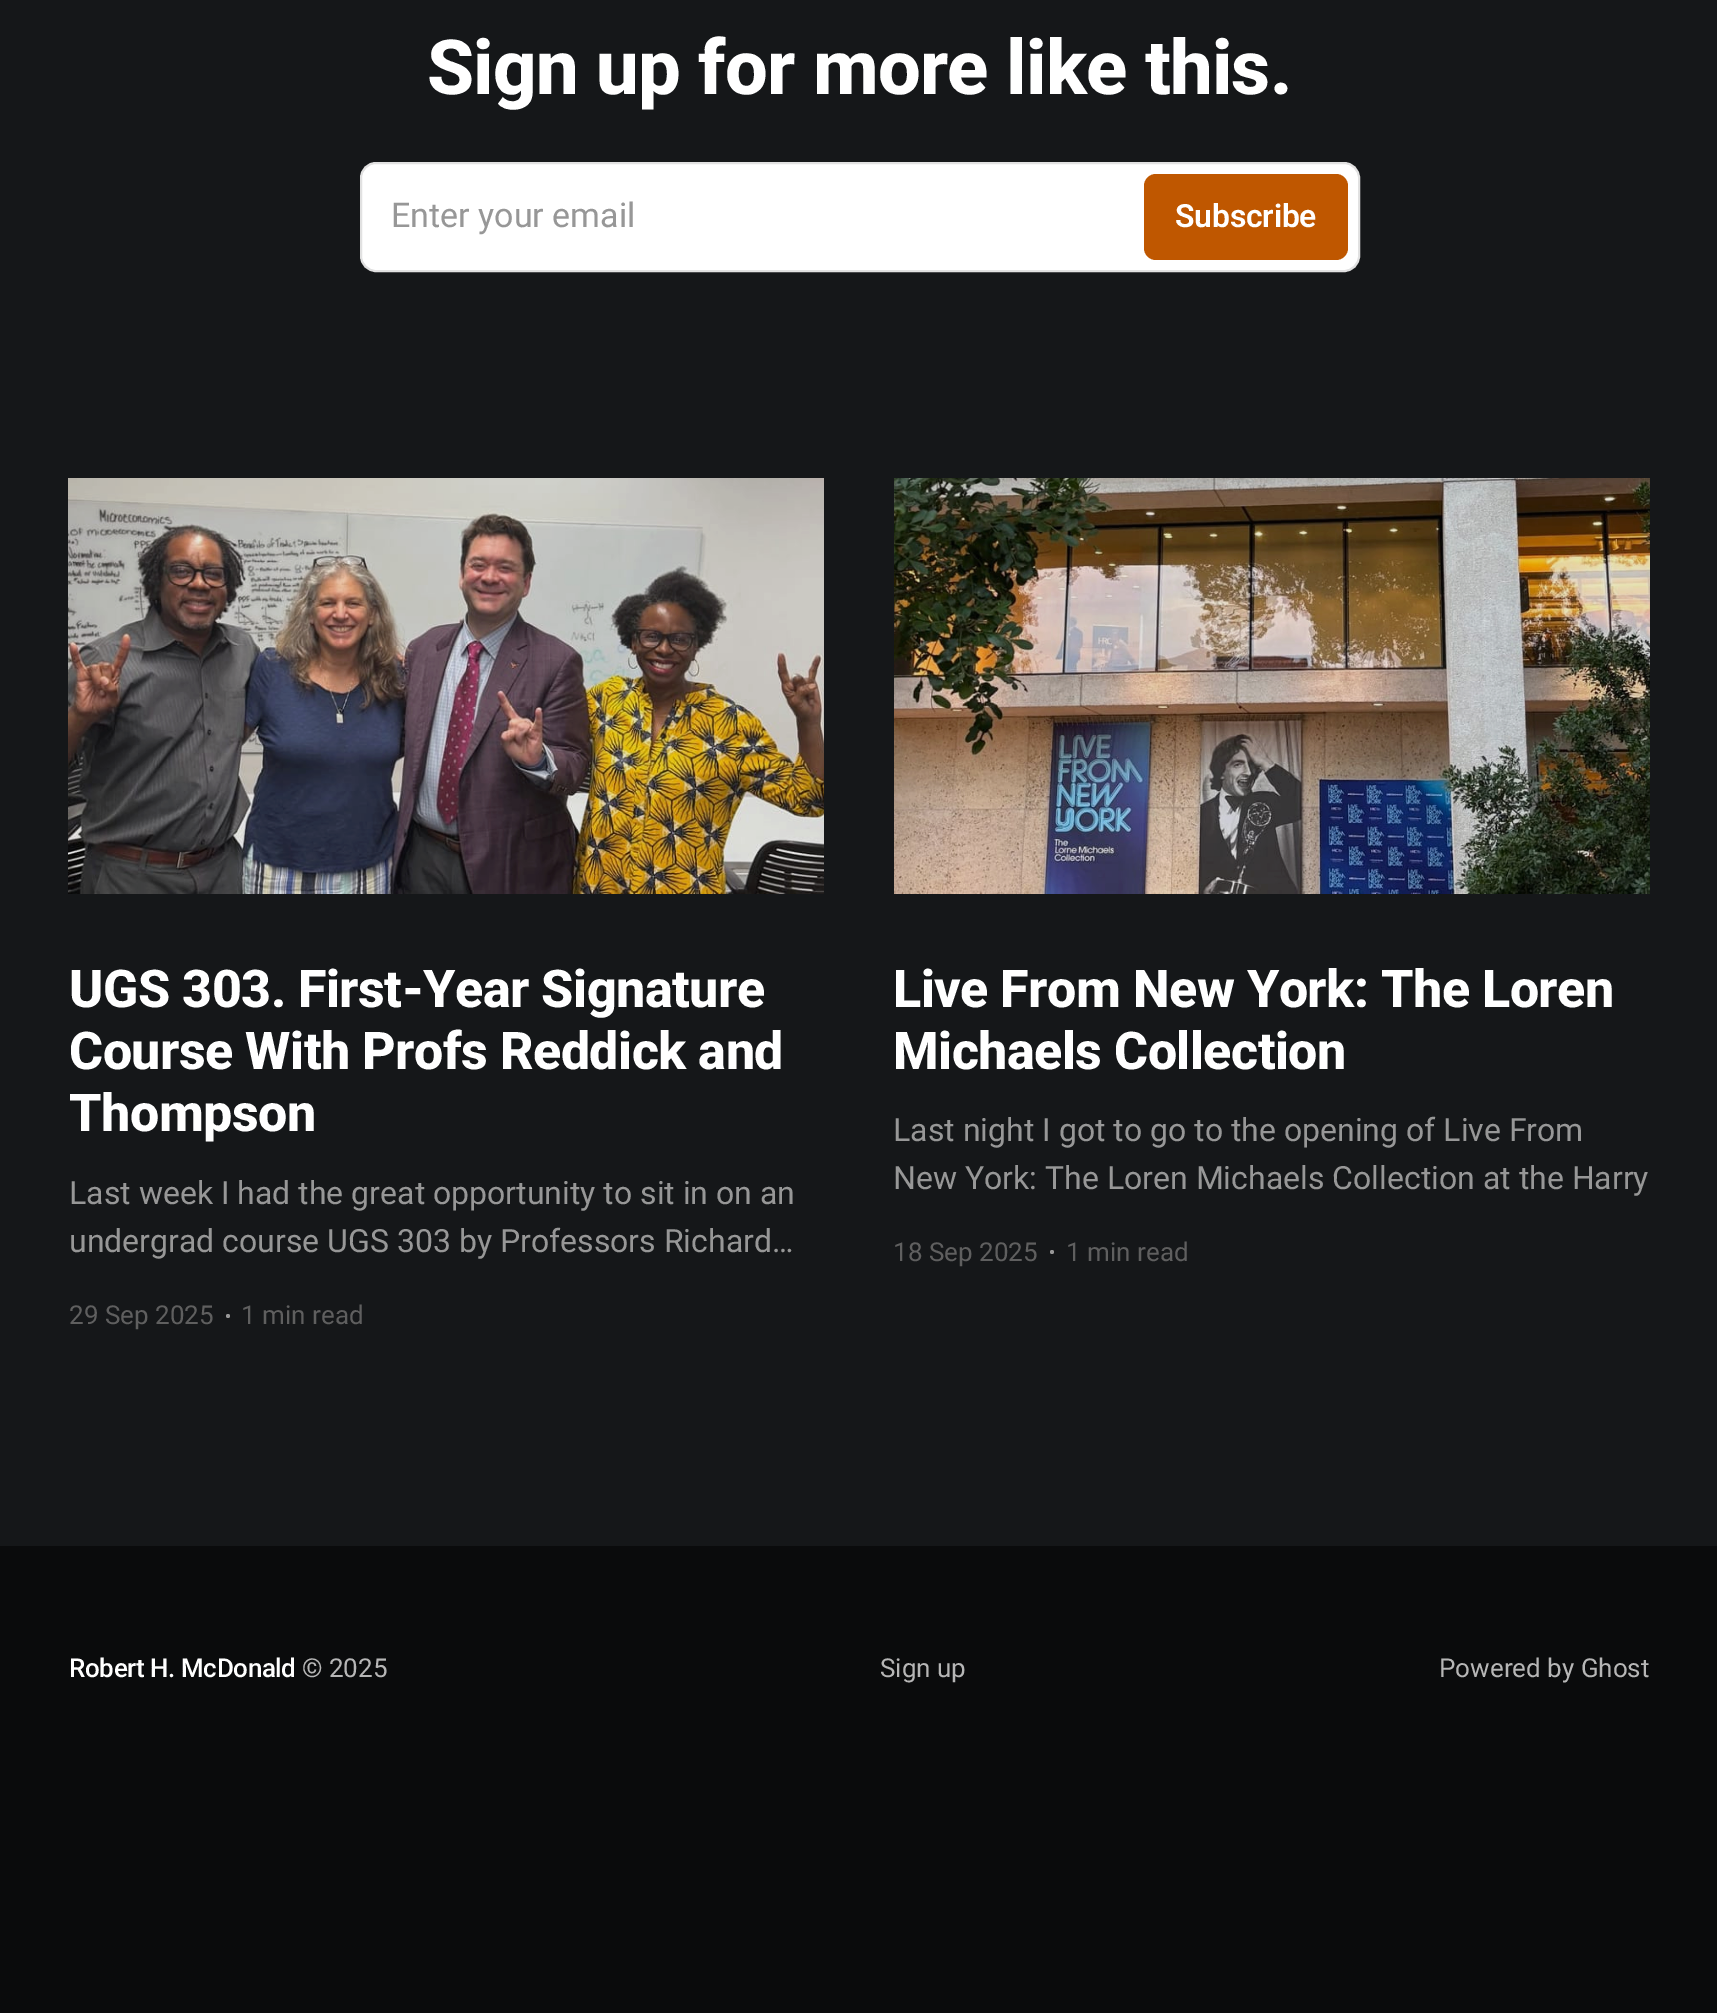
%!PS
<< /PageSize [1717 2013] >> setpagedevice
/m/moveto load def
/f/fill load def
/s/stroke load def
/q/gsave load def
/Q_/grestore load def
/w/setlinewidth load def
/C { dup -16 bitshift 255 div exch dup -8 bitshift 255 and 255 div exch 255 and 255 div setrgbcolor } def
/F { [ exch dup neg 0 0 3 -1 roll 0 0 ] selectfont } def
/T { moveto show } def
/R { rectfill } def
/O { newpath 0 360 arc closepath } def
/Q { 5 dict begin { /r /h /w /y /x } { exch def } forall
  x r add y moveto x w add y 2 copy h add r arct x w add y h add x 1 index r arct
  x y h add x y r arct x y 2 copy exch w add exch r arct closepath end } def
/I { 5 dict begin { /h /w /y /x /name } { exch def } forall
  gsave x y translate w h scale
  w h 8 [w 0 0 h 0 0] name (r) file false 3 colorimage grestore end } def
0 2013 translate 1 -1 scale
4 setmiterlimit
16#151719 C
0 0 1717 2013 R
/Roboto-ExtraBold 76 F
16#FFFFFF C
427 94 m -.75 0 (Sign up for more like this.) ashow
361 163 998 108 15 Q q f Q_
16#E1E1E1 C
2 w
s
/Roboto-Regular 34 F
16#979797 C
(Enter your email) 391 227 T
16#BF5700 C
1144 174 204 86 12 Q f
/Roboto-SemiBold 32 F
16#FFFFFF C
1175 227 m -.25 0 (Subscribe) ashow
(1.rgb) 68 478 756 416 I
/Roboto-ExtraBold 52 F
69 1007 m -.5 0 (UGS 303. First-Year Signature) ashow
69 1069 m -.5 0 (Course With Profs Reddick and) ashow
69 1131 m -.5 0 (Thompson) ashow
/Roboto-Regular 32 F
16#979797 C
(Last week I had the great opportunity to sit in on an) 69 1204 T
(undergrad course UGS 303 by Professors Richard…) 69 1252 T
/Roboto-Regular 26 F
16#5F5F5F C
(29 Sep 2025) 69 1324 T
16#979797 C
228 1316 2 O f
16#5F5F5F C
(1 min read) 241 1324 T
(2.rgb) 894 478 756 416 I
/Roboto-ExtraBold 52 F
16#FFFFFF C
893 1007 m -.5 0 (Live From New York: The Loren) ashow
893 1069 m -.5 0 (Michaels Collection) ashow
/Roboto-Regular 32 F
16#979797 C
(Last night I got to go to the opening of Live From) 893 1141 T
(New York: The Loren Michaels Collection at the Harry) 893 1189 T
/Roboto-Regular 26 F
16#5F5F5F C
(18 Sep 2025) 893 1261 T
16#979797 C
1052 1252 2 O f
16#5F5F5F C
(1 min read) 1066 1261 T
16#0A0B0C C
0 1546 1717 467 R
/Roboto-Medium 26 F
16#FFFFFF C
69 1677 m -.4 0 (Robert H. McDonald) ashow
/Roboto-Regular 26 F
16#B6B6B6 C
(© 2025) 302 1677 T
(Sign up) 880 1677 T
(Powered by Ghost) 1439 1677 T
showpage
